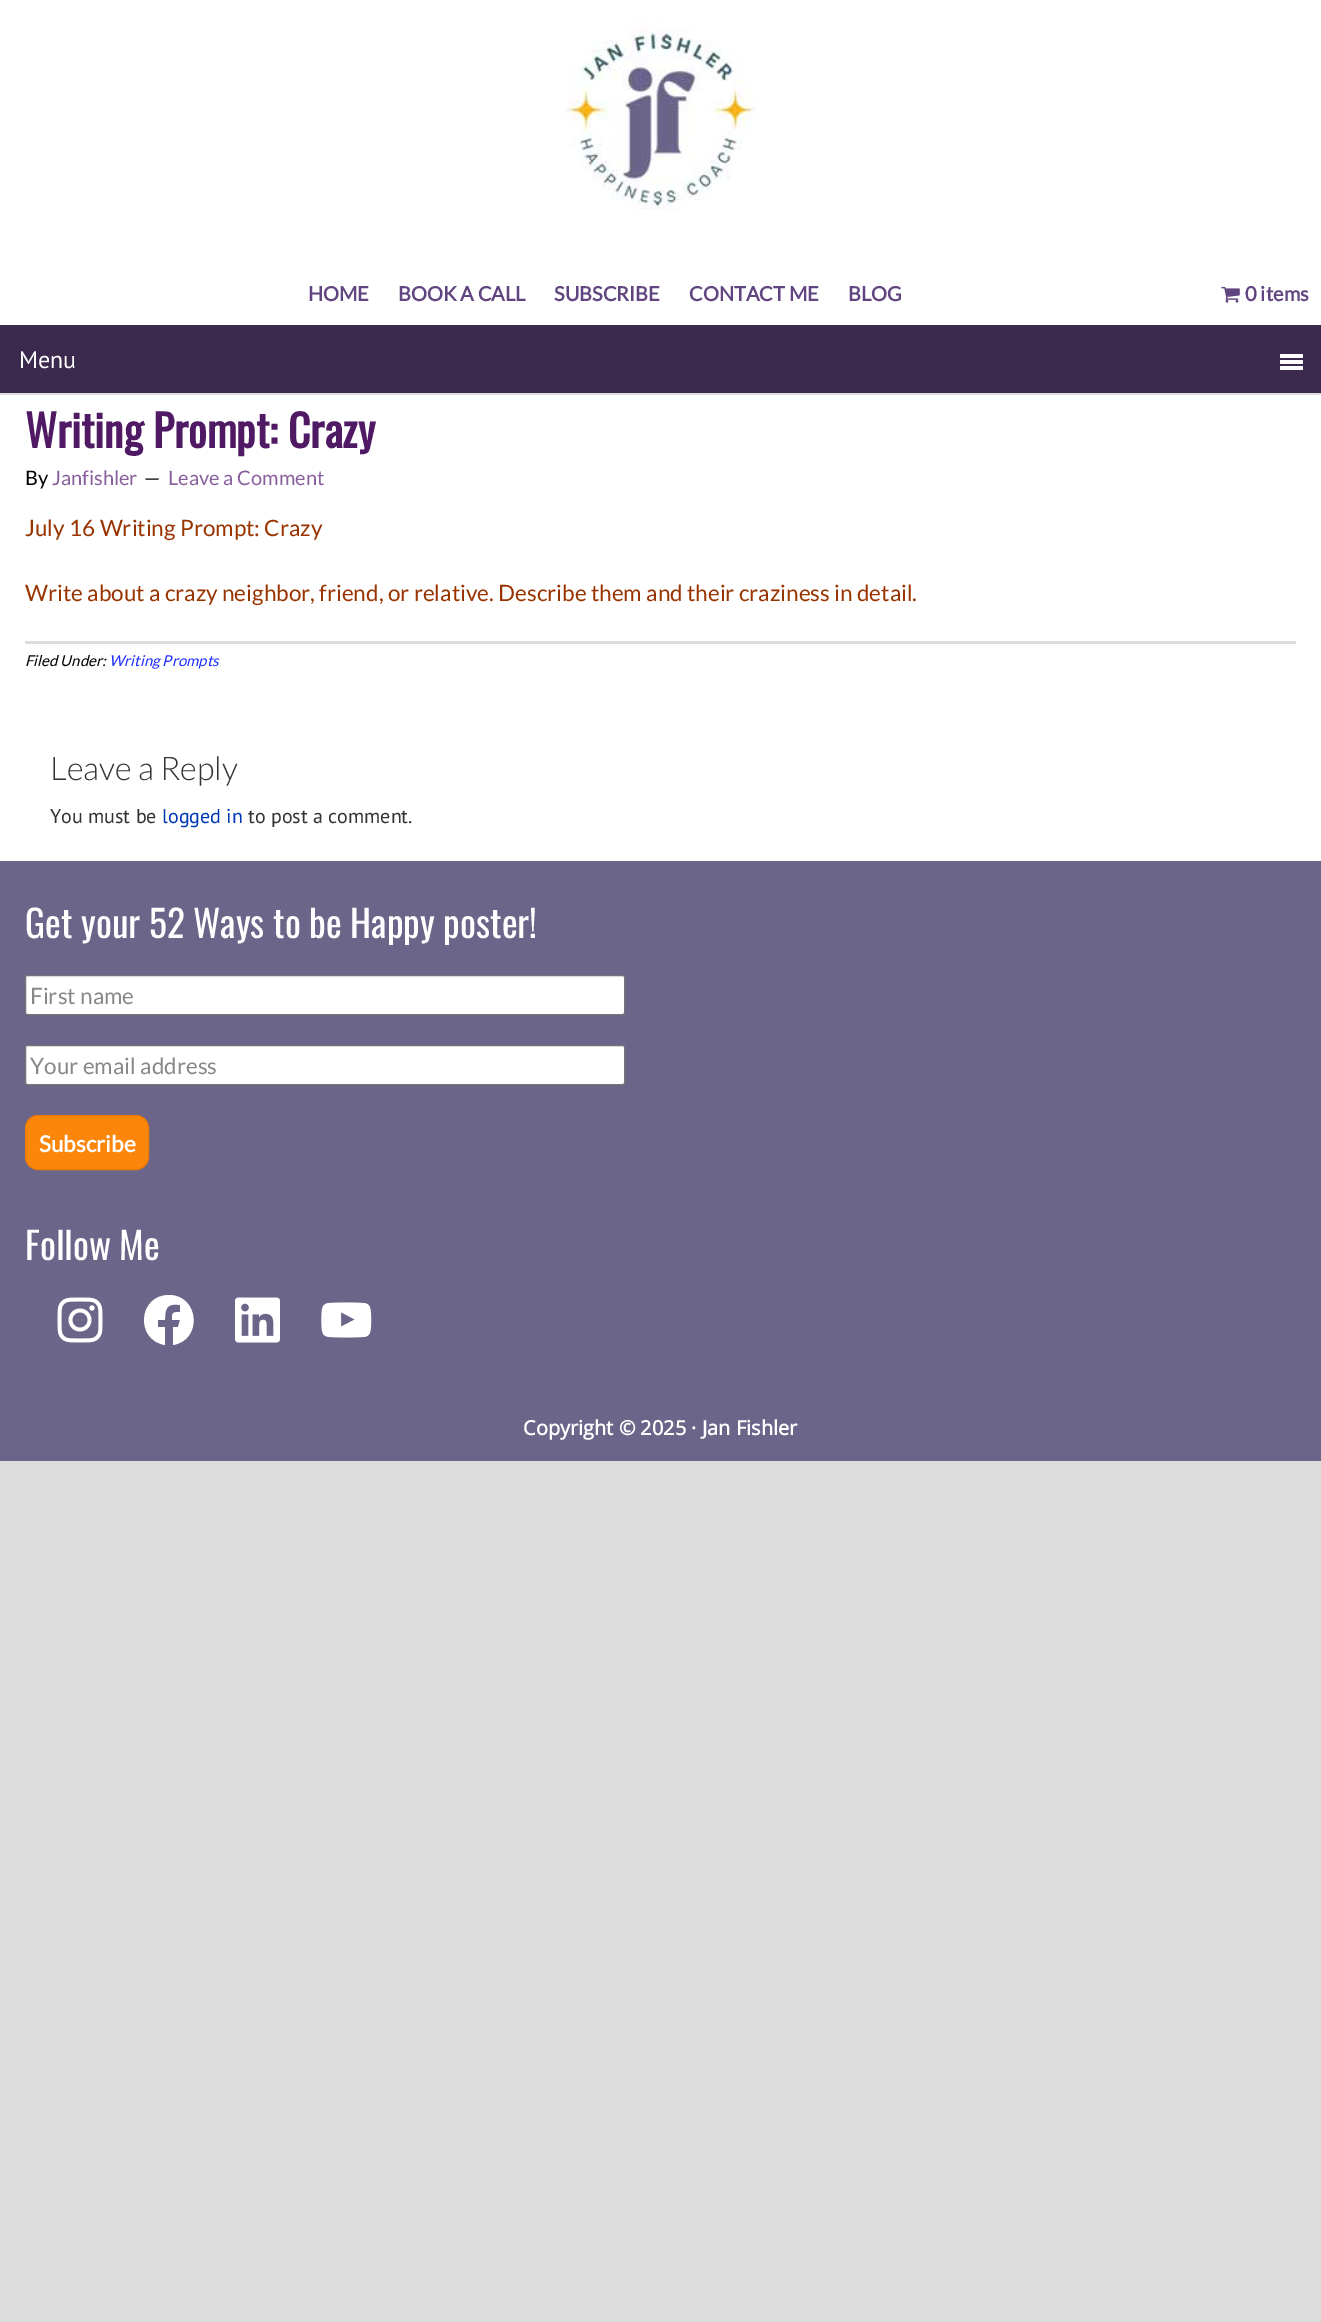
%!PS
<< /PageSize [1321 2322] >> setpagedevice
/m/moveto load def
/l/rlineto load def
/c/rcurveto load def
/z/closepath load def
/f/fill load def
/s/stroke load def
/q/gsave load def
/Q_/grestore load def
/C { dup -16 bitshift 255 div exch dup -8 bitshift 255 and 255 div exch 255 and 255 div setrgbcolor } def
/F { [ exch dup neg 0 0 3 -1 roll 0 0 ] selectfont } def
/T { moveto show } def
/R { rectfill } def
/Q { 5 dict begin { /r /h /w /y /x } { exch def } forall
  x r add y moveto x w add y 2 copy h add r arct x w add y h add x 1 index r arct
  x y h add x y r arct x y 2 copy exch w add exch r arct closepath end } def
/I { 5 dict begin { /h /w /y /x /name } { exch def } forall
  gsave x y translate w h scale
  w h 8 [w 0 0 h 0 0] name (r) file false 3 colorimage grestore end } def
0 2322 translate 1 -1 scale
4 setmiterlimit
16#DDDDDD C
0 0 1321 2322 R
16#FFFFFF C
0 0 1321 325 R
(1.rgb) 565 21 191 189 I
/Lato-Bold 20 F
16#614580 C
(HOME) 308 301 T
(BOOK A CALL) 398 301 T
(SUBSCRIBE) 554 301 T
(CONTACT ME) 689 301 T
(BLOG) 848 301 T
(2.rgb) 1221 286 19 17 I
(0 items) 1245 301 T
16#3B2A4E C
0 325 1321 68 R
/PTSans-Regular 24 F
16#FFFFFF C
(Menu) 19 368 T
1280 354 23 4 1 Q f
1280 360 23 4 1 Q f
1280 366 23 4 1 Q f
0 395 1321 466 R
/Oswald-Bold 43.75 F
16#4F1964 C
(Writing Prompt: Crazy) 25 448 T
/Lato-Regular 20 F
16#000000 C
(By) 25 485 T
16#88609D C
(Janfishler) 52 485 T
16#000000 C
(—) 144 485 T
16#88609D C
(Leave a Comment) 168 485 T
/Lato-Regular 22.5 F
16#993300 C
(July 16 Writing Prompt: Crazy) 25 536 T
(Write about a crazy neighbor, friend, or relative. Describe them and their craziness in detail.) 25 601 T
16#DDDDDD C
25 641 1271 3 R
/Lato-Italic 15 F
16#000000 C
(Filed Under:) 25 666 T
16#2130FE C
(Writing Prompts) 109 666 T
/Lato-Light 32.5 F
16#333333 C
(Leave a Reply) 50 780 T
/PTSans-Regular 20 F
(You must be) 50 823 T
16#0037B4 C
(logged in) 162 823 T
16#333333 C
(to post a comment.) 248 823 T
16#6B658A C
0 861 1321 600 R
/Oswald-Regular 37.5 F
16#FFFFFF C
(Get your 52 Ways to be Happy poster!) 25 938 T
25.5 975.5 599 39 2 Q q f Q_
16#767676 C
s
/Lato-Regular 22.5 F
16#888888 C
(First name) 30 1004 T
16#FFFFFF C
25.5 1045.5 599 39 2 Q q f Q_
16#767676 C
s
16#888888 C
(Your email address) 30 1074 T
16#FB860A C
25.5 1115.5 123 54 12.5 Q q f Q_
16#EF7A00 C
s
/Lato-Bold 22.5 F
16#FFFFFF C
(Subscribe) 39 1152 T
/Oswald-Regular 37.5 F
(Follow Me) 25 1260 T
(3.rgb) 57 1297 46 46 I
169 1295 m -31 0 -34 45 -4 50 c 0 -18 l -7 0 l 0 -7 l 7 0 l 0 -12 2 -17 15 -15 c 0 7 l -8 0 -8 1 -8 8 c 8 0 l -2 7 l -5 0 l 0 18 l 30 -5 26 -50 -4 -50 c z f
(4.rgb) 235 1297 45 46 I
(5.rgb) 321 1302 51 36 I
/OpenSans-Bold 20 F
(Copyright © 2025 · Jan Fishler) 523 1435 T
showpage
